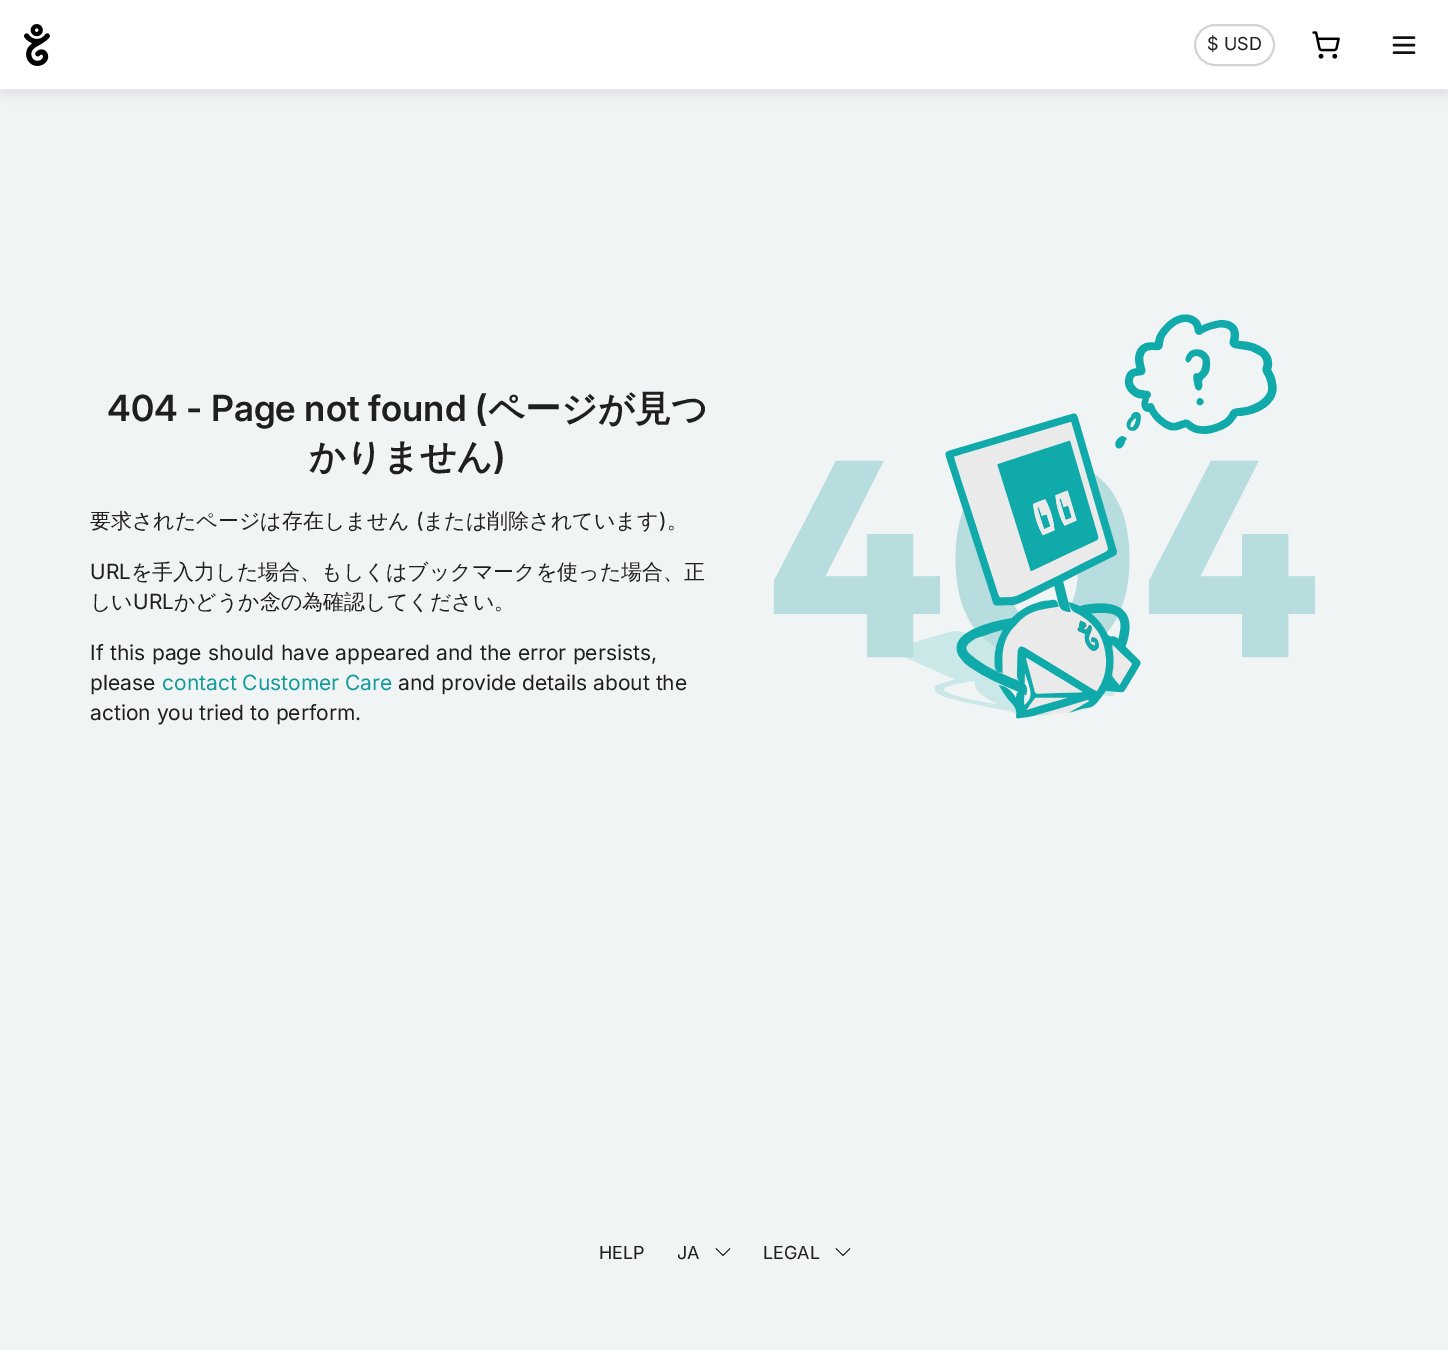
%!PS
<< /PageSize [1448 1350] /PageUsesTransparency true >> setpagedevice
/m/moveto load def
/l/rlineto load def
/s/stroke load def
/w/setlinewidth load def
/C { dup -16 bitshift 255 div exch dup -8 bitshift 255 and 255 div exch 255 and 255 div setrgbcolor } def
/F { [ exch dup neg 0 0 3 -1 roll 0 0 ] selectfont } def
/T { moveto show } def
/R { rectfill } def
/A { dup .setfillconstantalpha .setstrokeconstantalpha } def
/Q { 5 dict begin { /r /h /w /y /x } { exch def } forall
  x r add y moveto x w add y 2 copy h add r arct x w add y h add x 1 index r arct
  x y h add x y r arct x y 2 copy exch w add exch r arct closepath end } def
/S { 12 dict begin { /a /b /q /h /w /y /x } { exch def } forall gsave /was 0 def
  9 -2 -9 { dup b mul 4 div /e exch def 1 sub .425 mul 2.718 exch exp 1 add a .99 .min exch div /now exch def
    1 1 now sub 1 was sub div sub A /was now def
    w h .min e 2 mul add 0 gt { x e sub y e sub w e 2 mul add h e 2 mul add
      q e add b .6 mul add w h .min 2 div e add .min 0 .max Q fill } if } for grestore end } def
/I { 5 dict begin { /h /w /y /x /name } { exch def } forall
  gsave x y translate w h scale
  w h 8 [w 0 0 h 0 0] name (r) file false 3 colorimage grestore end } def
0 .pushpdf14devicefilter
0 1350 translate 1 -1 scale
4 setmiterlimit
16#F1F4F4 C
0 0 1448 1350 R
16#000000 C
3 9 1443 84 0 6 .1 S
16#FFFFFF C
0 0 1448 89 R
16#E8E8E8 C
0 89 1448 2 R
(1.rgb) 24 24 26 42 I
16#D4D4D4 C
2 w
1195 25 79 40 20 Q s
/Inter-Regular 18 F
16#1F1F1F C
($ USD) 1207 50 T
(2.rgb) 1312 31 28 28 I
16#121212 C
2.5 w
1 setlinecap
1 setlinejoin
1394 45 m 20 0 l 1394 52.5 m 20 0 l 1394 37.5 m 20 0 l s
/Inter-SemiBold 36 F
16#1F1F1F C
(404 - Page not found \() 107 421 T
/WenQuanYiZenHei-Bold 36 F
(ページが見つ) 488 421 T
(かりません) 309 469 T
/Inter-SemiBold 36 F
(\)) 493 469 T
/WenQuanYiZenHei-Medium 21 F
(要求されたページは存在しません) 90 528 T
/Inter-Regular 21 F
(\() 416 528 T
/WenQuanYiZenHei-Medium 21 F
(または削除されています) 423 528 T
/Inter-Regular 21 F
(\)) 659 528 T
/WenQuanYiZenHei-Medium 21 F
(。) 667 528 T
/Inter-Regular 21 F
(URL) 90 579 T
/WenQuanYiZenHei-Medium 21 F
(を手入力した場合、もしくはブックマークを使った場合、正) 131 579 T
(しい) 90 609 T
/Inter-Regular 21 F
(URL) 133 609 T
/WenQuanYiZenHei-Medium 21 F
(かどうか念の為確認してください。) 174 609 T
/Inter-Regular 21 F
90 660 m .5 0 32 (If this page should have appeared and the error persists,) widthshow
(please) 90 690 T
16#139A9A C
(contact Customer Care) 162 690 T
16#1F1F1F C
(and provide details about the) 398 690 T
(action you tried to perform.) 90 720 T
(3.rgb) 773 314 542 405 I
/Inter-Regular 18 F
(HELP) 599 1259 T
(JA) 677 1259 T
(4.rgb) 715 1248 16 9 I
(LEGAL) 763 1259 T
(4.rgb) 835 1248 16 9 I
.poppdf14devicefilter showpage
